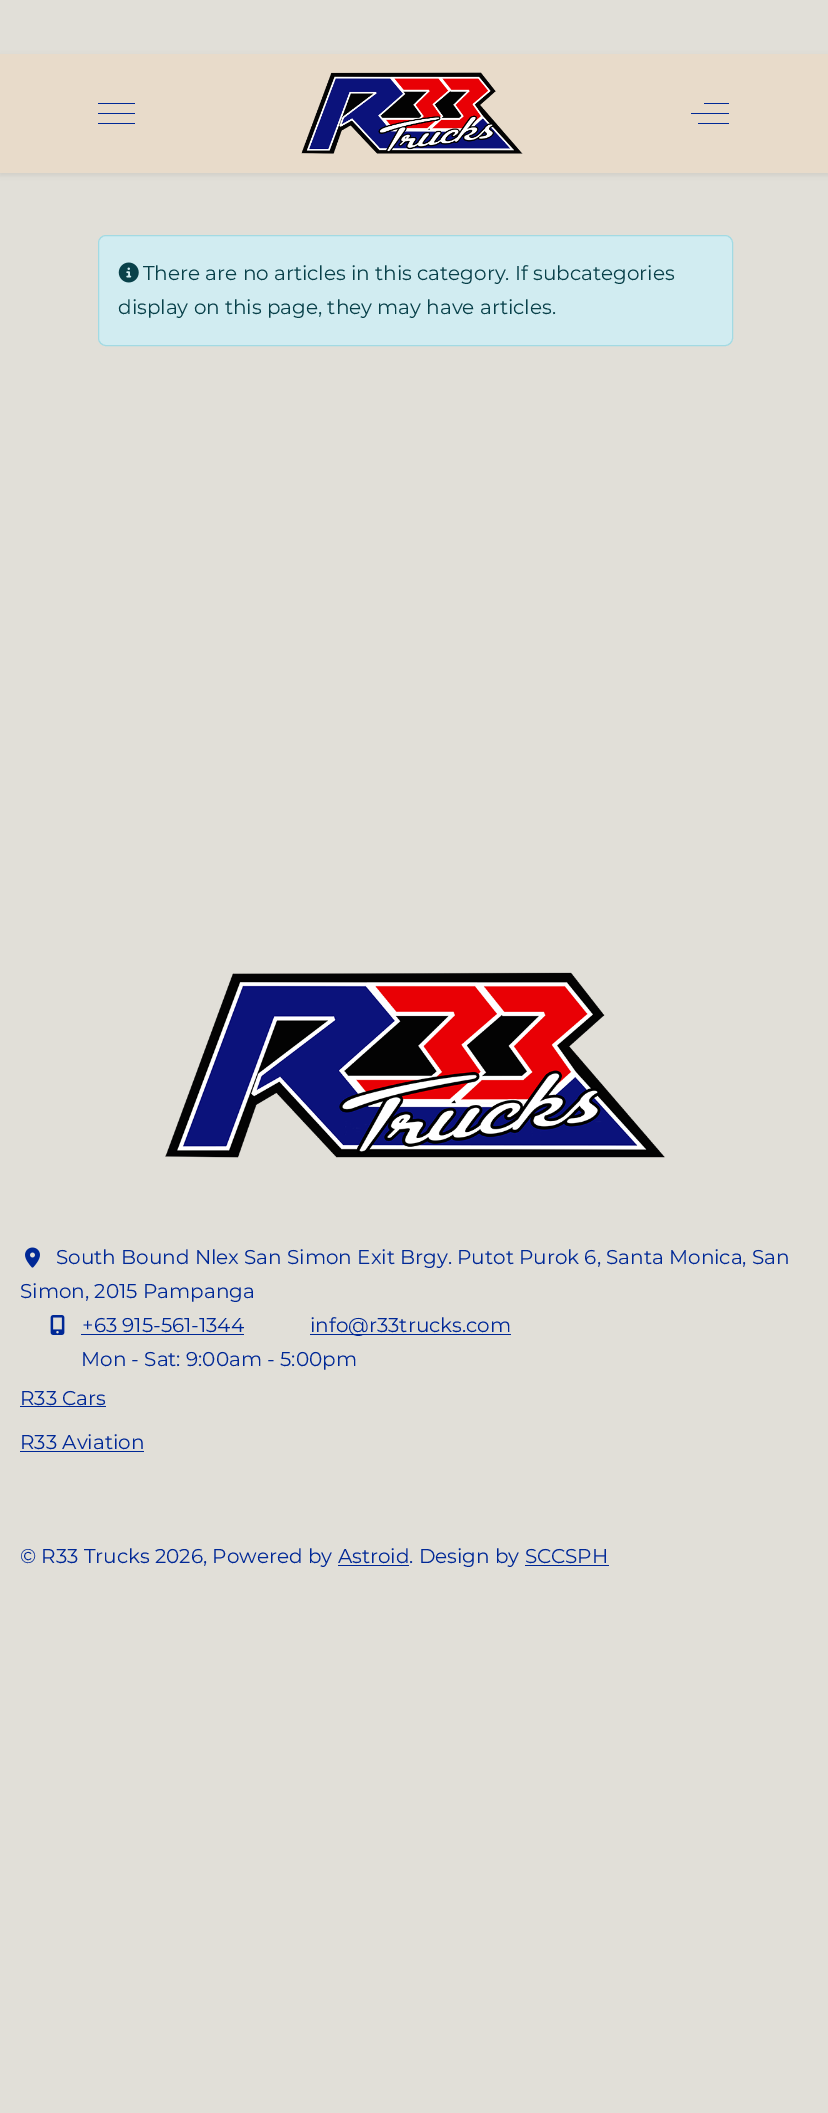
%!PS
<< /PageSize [828 2113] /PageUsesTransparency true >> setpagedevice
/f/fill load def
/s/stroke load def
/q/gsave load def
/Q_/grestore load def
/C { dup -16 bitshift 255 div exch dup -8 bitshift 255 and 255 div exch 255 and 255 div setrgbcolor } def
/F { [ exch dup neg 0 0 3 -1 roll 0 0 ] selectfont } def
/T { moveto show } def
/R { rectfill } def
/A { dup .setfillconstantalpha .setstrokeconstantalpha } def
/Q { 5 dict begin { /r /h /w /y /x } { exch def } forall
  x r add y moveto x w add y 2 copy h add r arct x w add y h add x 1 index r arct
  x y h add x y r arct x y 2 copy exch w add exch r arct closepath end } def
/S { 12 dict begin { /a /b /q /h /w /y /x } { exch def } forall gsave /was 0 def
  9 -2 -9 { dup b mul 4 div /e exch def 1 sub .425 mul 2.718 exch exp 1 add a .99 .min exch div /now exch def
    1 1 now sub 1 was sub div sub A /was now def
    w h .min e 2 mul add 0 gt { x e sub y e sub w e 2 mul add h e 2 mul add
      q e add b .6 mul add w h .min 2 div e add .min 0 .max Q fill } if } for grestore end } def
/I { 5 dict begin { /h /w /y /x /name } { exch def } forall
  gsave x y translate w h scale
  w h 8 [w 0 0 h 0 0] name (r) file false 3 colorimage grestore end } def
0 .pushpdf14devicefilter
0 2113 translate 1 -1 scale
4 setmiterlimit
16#E1DFD8 C
0 0 828 2113 R
16#000000 C
0 56 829 119 0 2.5 .07 S
16#E8DBCA C
0 54 828 119 R
16#002896 C
98 113 37 1 R
98 103 37 1 R
98 123 37 1 R
(1.rgb) 301 72 222 82 I
691 113 38 1 R
704 103 25 1 R
698 123 31 1 R
16#D1ECF1 C
98.5 235.5 634 110 7.5 Q q f Q_
16#A2DAE3 C
s
(2.rgb) 118 262 21 21 I
/Montserrat-Regular 20 F
16#09414A C
(There are no articles in this category. If subcategories) 143 280 T
(display on this page, they may have articles.) 118 314 T
(3.rgb) 165 972 500 186 I
(4.rgb) 25 1247 15 21 I
16#002896 C
(South Bound Nlex San Simon Exit Brgy. Putot Purok 6, Santa Monica, San) 56 1264 T
(Simon, 2015 Pampanga) 20 1298 T
(5.rgb) 50 1315 15 20 I
(+63 915-561-1344) 82 1332 T
81 1334 163 1 R
310 1334 201 1 R
(info@r33trucks.com) 310 1332 T
(Mon - Sat: 9:00am - 5:00pm) 81 1366 T
(R33 Cars) 20 1405 T
20 1406 86 1 R
(R33 Aviation) 20 1449 T
20 1451 124 1 R
(© R33 Trucks 2026, Powered by Astroid. Design by SCCSPH) 20 1563 T
338 1565 71 1 R
525 1565 84 1 R
.poppdf14devicefilter showpage
